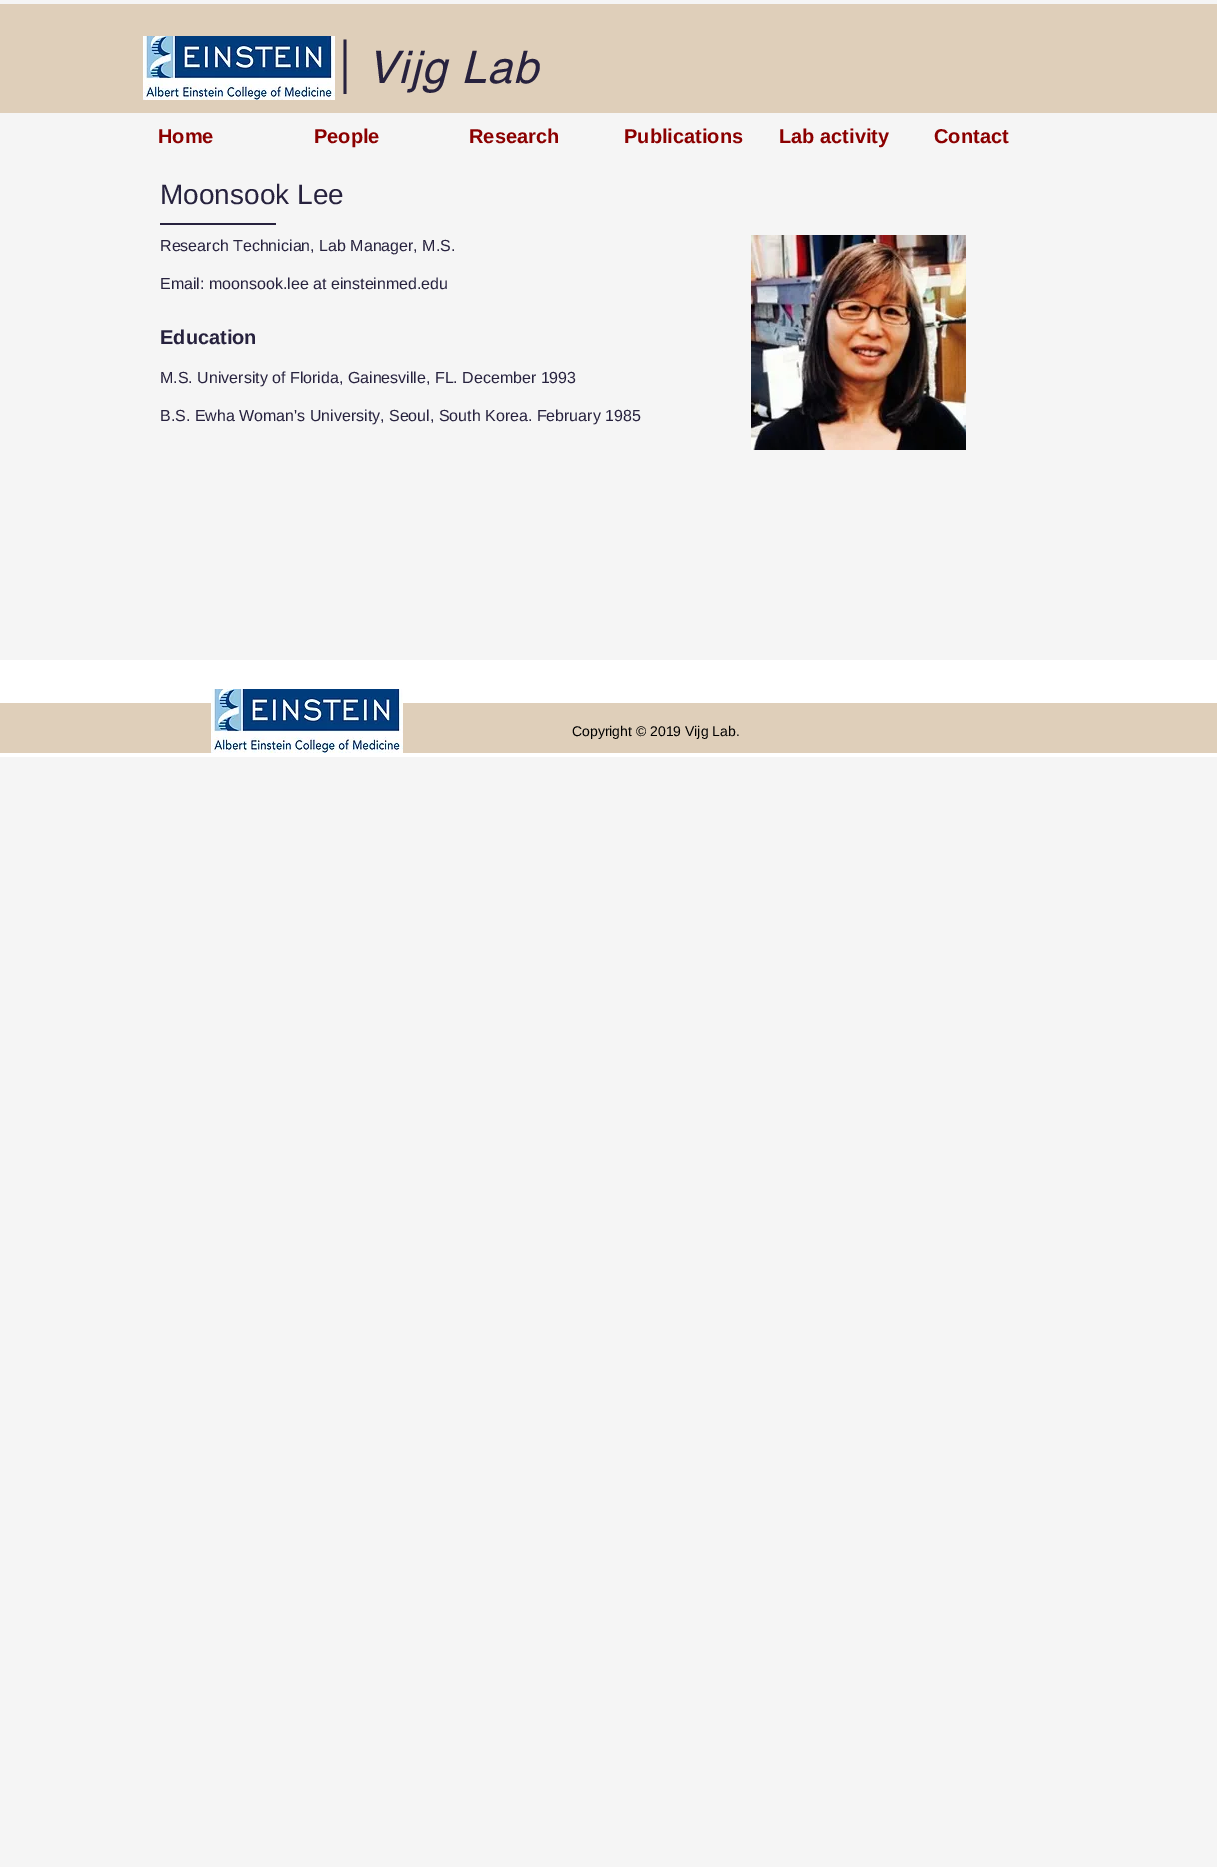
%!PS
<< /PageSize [1217 1867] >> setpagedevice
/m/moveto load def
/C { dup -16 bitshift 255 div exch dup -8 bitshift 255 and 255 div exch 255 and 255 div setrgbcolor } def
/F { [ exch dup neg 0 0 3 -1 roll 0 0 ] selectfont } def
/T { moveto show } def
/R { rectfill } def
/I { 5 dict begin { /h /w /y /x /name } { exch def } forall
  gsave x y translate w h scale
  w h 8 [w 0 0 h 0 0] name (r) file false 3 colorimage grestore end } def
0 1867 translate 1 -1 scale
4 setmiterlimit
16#F5F5F5 C
0 0 1217 1867 R
16#DFCFBA C
0 4 1217 109 R
(1.rgb) 143 36 192 64 I
/LiberationSerif-Regular 60 F
16#27223E C
(|) 339 81 T
/helvetica-Italic 45 F
367 83 m 1.25 0 (Vijg Lab) ashow
/LiberationSans-Bold 20 F
16#8B0000 C
(Home) 158 143 T
(People) 314 143 T
(Research) 469 143 T
(Publications) 624 143 T
(Lab activity) 779 143 T
(Contact) 934 143 T
/LiberationSans-Regular 28 F
16#27223E C
(Moonsook Lee) 160 204 T
160 223 116 2 R
/LiberationSans-Regular 16 F
(Research Technician, Lab Manager, M.S.) 160 251 T
(Email: moonsook.lee at einsteinmed.edu) 160 289 T
/LiberationSans-Bold 20 F
(Education) 160 344 T
/LiberationSans-Regular 16 F
(M.S. University of Florida, Gainesville, FL. December 1993) 160 383 T
(B.S. Ewha Woman's University, Seoul, South Korea. February 1985) 160 421 T
(2.rgb) 751 235 215 215 I
16#FFFFFF C
0 660 1217 97 R
16#DFCFBA C
0 703 1217 50 R
(1.rgb) 211 689 192 64 I
/LiberationSans-Regular 14 F
16#000000 C
(Copyright © 2019 Vijg Lab.) 572 736 T
showpage
